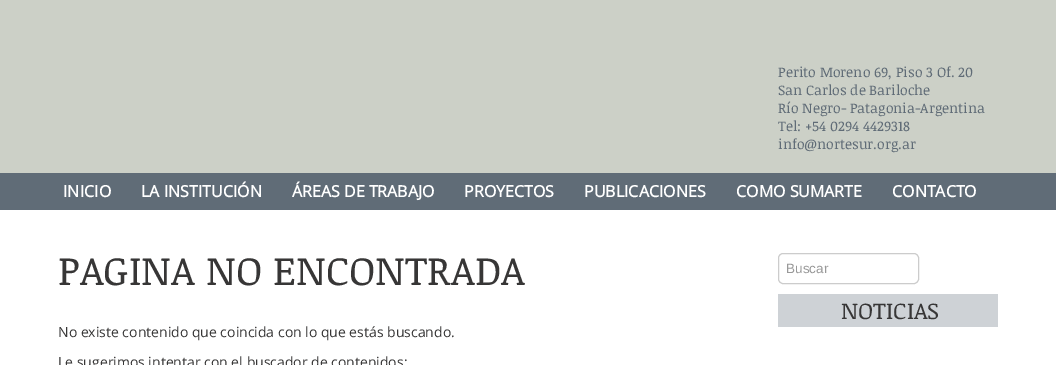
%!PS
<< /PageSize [1056 365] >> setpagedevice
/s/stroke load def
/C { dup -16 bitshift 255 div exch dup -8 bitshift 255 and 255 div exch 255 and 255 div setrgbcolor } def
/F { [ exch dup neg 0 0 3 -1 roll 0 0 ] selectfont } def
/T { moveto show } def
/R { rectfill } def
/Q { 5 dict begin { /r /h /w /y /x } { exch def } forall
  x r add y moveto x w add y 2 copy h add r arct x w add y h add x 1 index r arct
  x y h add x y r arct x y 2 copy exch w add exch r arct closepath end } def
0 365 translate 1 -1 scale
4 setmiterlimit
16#FFFFFF C
0 0 1056 365 R
16#CCD0C7 C
0 0 1056 173 R
/NoticiaText-Regular 14 F
16#606C77 C
(Perito Moreno 69, Piso 3 Of. 20) 778 77 T
(San Carlos de Bariloche) 778 95 T
(Río Negro- Patagonia-Argentina) 778 113 T
(Tel: +54 0294 4429318) 778 131 T
(info@nortesur.org.ar) 778 149 T
0 173 1056 37 R
/OpenSans-Bold 16 F
16#FFFFFF C
(INICIO) 63 197 T
(LA INSTITUCIÓN) 141 197 T
(ÁREAS DE TRABAJO) 292 197 T
(PROYECTOS) 464 197 T
(PUBLICACIONES) 584 197 T
(COMO SUMARTE) 736 197 T
(CONTACTO) 892 197 T
/NoticiaText-Regular 40 F
16#373636 C
(PAGINA NO ENCONTRADA) 58 285 T
/OpenSans-Regular 14 F
(No existe contenido que coincida con lo que estás buscando.) 58 337 T
(Le sugerimos intentar con el buscador de contenidos:) 58 367 T
16#CCCCCC C
778.5 253.5 140 30 4.5 Q s
/LiberationSans-Regular 13.5 F
16#999999 C
(Buscar) 786 273 T
16#CED2D6 C
778 294 220 33 R
/NoticiaText-Regular 23 F
16#373636 C
(NOTICIAS) 841 319 T
showpage
